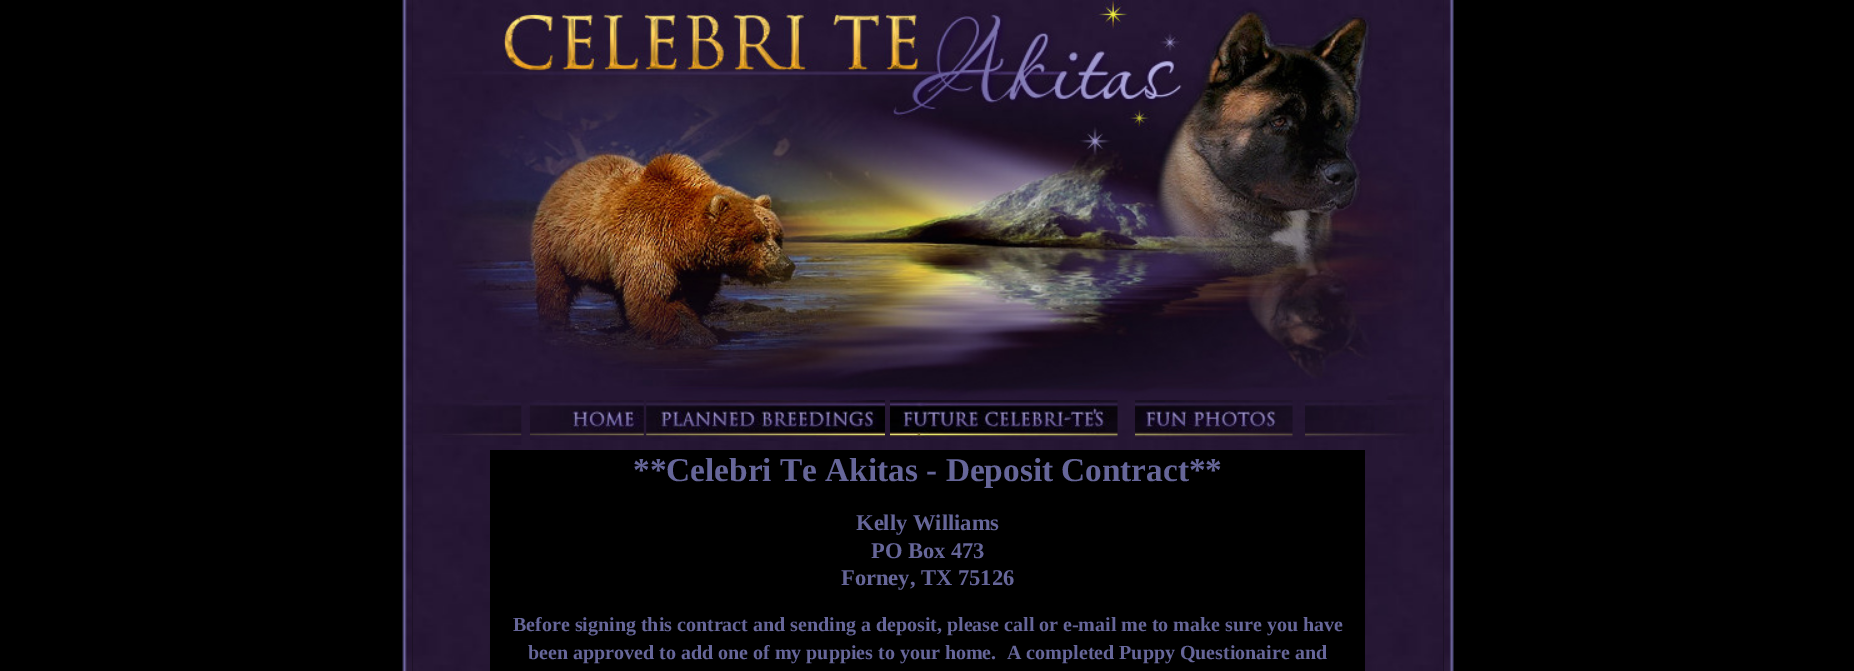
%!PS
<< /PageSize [1854 671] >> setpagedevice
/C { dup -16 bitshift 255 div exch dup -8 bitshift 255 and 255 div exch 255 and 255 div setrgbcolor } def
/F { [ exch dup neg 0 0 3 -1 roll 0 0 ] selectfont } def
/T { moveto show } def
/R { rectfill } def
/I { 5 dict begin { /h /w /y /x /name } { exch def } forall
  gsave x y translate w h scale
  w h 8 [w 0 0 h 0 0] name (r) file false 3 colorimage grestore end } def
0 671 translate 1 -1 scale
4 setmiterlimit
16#000000 C
0 0 1854 671 R
(1.rgb) 402 0 11 445 I
(3.rgb) 412 0 1032 445 I
(2.rgb) 402 181 11 84 I
(4.rgb) 412 0 1032 400 I
(5.rgb) 412 400 110 45 I
(6.rgb) 530 400 114 40 I
(7.rgb) 646 400 239 41 I
(8.rgb) 890 400 228 40 I
(9.rgb) 1135 400 158 40 I
(10.rgb) 1305 400 129 40 I
(11.rgb) 1444 0 10 445 I
(12.rgb) 1444 191 10 70 I
(13.rgb) 402 445 11 226 I
(14.rgb) 412 445 1032 226 I
490 450 875 221 R
/LiberationSerif-Bold 33.3 F
16#666699 C
(**Celebri Te Akitas - Deposit Contract**) 633 481 T
/LiberationSerif-Bold 22.5 F
(Kelly Williams) 856 530 T
(PO Box 473) 871 558 T
(Forney, TX 75126) 841 585 T
/LiberationSerif-Bold 20 F
(Before signing this contract and sending a deposit, please call or e-mail me to make sure you have) 513 631 T
(been approved to add one of my puppies to your home.) 528 659 T
(A completed Puppy Questionaire and) 1007 659 T
(15.rgb) 1444 445 10 226 I
showpage
